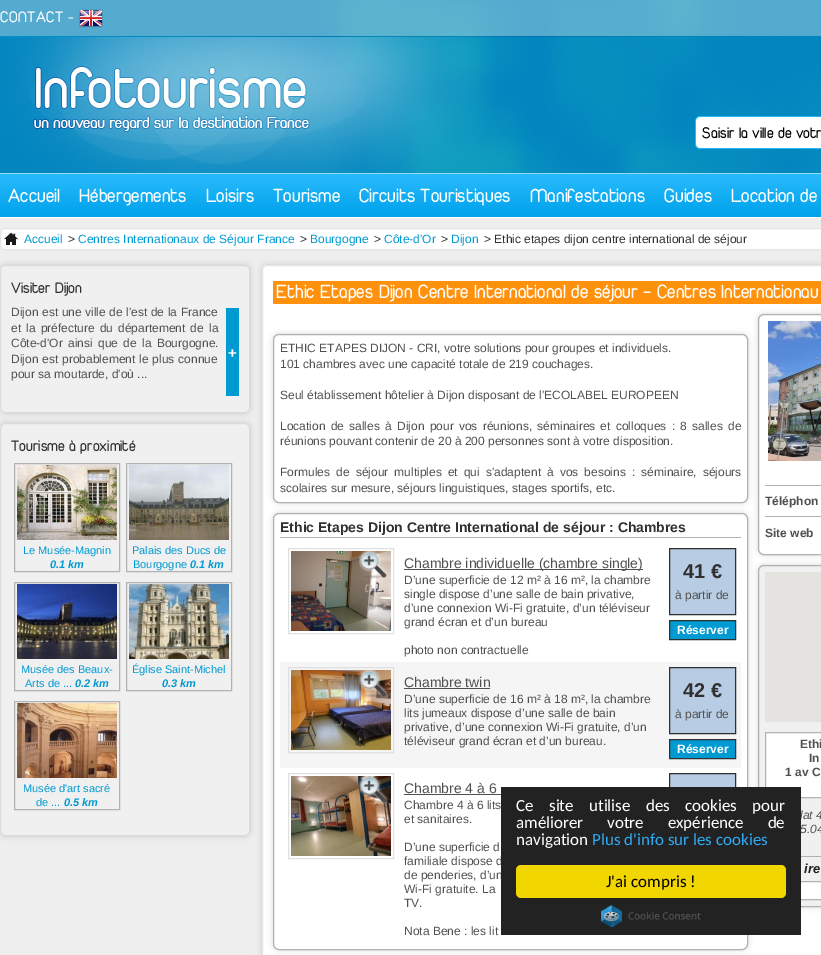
%!PS
<< /PageSize [821 955] /PageUsesTransparency true >> setpagedevice
/m/moveto load def
/l/rlineto load def
/c/rcurveto load def
/z/closepath load def
/f/fill load def
/s/stroke load def
/q/gsave load def
/Q_/grestore load def
/C { dup -16 bitshift 255 div exch dup -8 bitshift 255 and 255 div exch 255 and 255 div setrgbcolor } def
/F { [ exch dup neg 0 0 3 -1 roll 0 0 ] selectfont } def
/T { moveto show } def
/R { rectfill } def
/A { dup .setfillconstantalpha .setstrokeconstantalpha } def
/Q { 5 dict begin { /r /h /w /y /x } { exch def } forall
  x r add y moveto x w add y 2 copy h add r arct x w add y h add x 1 index r arct
  x y h add x y r arct x y 2 copy exch w add exch r arct closepath end } def
/S { 12 dict begin { /a /b /q /h /w /y /x } { exch def } forall gsave /was 0 def
  9 -2 -9 { dup b mul 4 div /e exch def 1 sub .425 mul 2.718 exch exp 1 add a .99 .min exch div /now exch def
    1 1 now sub 1 was sub div sub A /was now def
    w h .min e 2 mul add 0 gt { x e sub y e sub w e 2 mul add h e 2 mul add
      q e add b .6 mul add w h .min 2 div e add .min 0 .max Q fill } if } for grestore end } def
/I { 5 dict begin { /h /w /y /x /name } { exch def } forall
  gsave x y translate w h scale
  w h 8 [w 0 0 h 0 0] name (r) file false 3 colorimage grestore end } def
0 .pushpdf14devicefilter
0 955 translate 1 -1 scale
4 setmiterlimit
16#EEEEEE C
0 0 821 955 R
(1.rgb) 0 173 821 45 I
(2.rgb) 0 0 821 173 I
/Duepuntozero-Regular 16 F
16#FFFFFF C
0 22 m .5 0 (CONTACT) ashow
/Duepuntozero-Regular 14 F
68 22 m .5 0 (-) ashow
(3.rgb) 79 9 24 19 I
(4.rgb) 86 88 133 50 I
700 117 3 29 R
/Duepuntozero-Regular 16 F
16#000000 C
(Saisir la ville de votr) 702 138 T
/Duepuntozero-Regular 20 F
16#FFFFFF C
(Accueil) 8 202 T
(Hébergements) 79 202 T
(Loisirs) 206 202 T
(Tourisme) 273 202 T
(Circuits Touristiques) 359 202 T
(Manifestations) 530 202 T
(Guides) 664 202 T
(Location de) 731 202 T
0 228 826 22 5 Q f
0.39 A
16#BDBDBD C
.5 228.5 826 21 4.5 Q s
1 A
(5.rgb) 4 233 14 12 I
/LiberationSans-Regular 12 F
16#009AD2 C
(Accueil) 24 243 T
16#303030 C
(>) 68 243 T
16#009AD2 C
(Centres Internationaux de Séjour France) 78 243 T
16#303030 C
(>) 300 243 T
16#009AD2 C
(Bourgogne) 310 243 T
16#303030 C
(>) 374 243 T
16#009AD2 C
(Côte-d'Or) 384 243 T
16#303030 C
(>) 441 243 T
16#009AD2 C
(Dijon) 451 243 T
16#303030 C
(> Ethic etapes dijon centre international de séjour) 484 243 T
16#000000 C
0 265 250 148 5 3 .16 S
16#F0F0F0 C
0 265 250 148 5 Q f
0.39 A
16#BDBDBD C
.5 265.5 249 147 4.5 Q s
/Duepuntozero-Regular 16 F
1 A
16#303030 C
(Visiter Dijon) 11 293 T
/LiberationSans-Regular 12 F
16#505050 C
11 316 m .25 0 32 (Dijon est une ville de l'est de la France) widthshow
11 332 m 1.75 0 32 (et la préfecture du département de la) widthshow
11 347 m 2 0 32 (Côte-d'Or ainsi que de la Bourgogne.) widthshow
11 363 m .5 0 32 (Dijon est probablement le plus connue) widthshow
(pour sa moutarde, d'où ...) 11 378 T
16#009AD2 C
226 308 13 88 R
/LiberationSans-Bold 15 F
16#FFFFFF C
(+) 228 358 T
16#000000 C
0 423 250 413 5 3 .16 S
16#F0F0F0 C
0 423 250 413 5 Q f
0.39 A
16#BDBDBD C
.5 423.5 249 412 4.5 Q s
/Duepuntozero-Regular 16 F
1 A
16#303030 C
(Tourisme à proximité) 11 451 T
16#B2B2B2 C
14.5 463.5 105 108 rectstroke
(6.rgb) 17 465 100 75 I
/LiberationSans-Regular 11 F
16#009AD2 C
(Le Musée-Magnin) 23 554 T
/LiberationSans-BoldItalic 11 F
(0.1 km) 50 568 T
16#B2B2B2 C
126.5 463.5 105 108 rectstroke
(7.rgb) 129 465 100 75 I
/LiberationSans-Regular 11 F
16#009AD2 C
(Palais des Ducs de) 132 554 T
(Bourgogne) 133 568 T
/LiberationSans-BoldItalic 11 F
(0.1 km) 190 568 T
16#B2B2B2 C
14.5 582.5 105 108 rectstroke
(8.rgb) 17 584 100 75 I
/LiberationSans-Regular 11 F
16#009AD2 C
(Musée des Beaux-) 21 673 T
(Arts de ...) 25 687 T
/LiberationSans-BoldItalic 11 F
(0.2 km) 75 687 T
16#B2B2B2 C
126.5 582.5 105 108 rectstroke
(9.rgb) 129 584 100 75 I
/LiberationSans-Regular 11 F
16#009AD2 C
(Église Saint-Michel) 132 673 T
/LiberationSans-BoldItalic 11 F
(0.3 km) 162 687 T
16#B2B2B2 C
14.5 701.5 105 108 rectstroke
(10.rgb) 17 703 100 75 I
/LiberationSans-Regular 11 F
16#009AD2 C
(Musée d'art sacré) 23 792 T
(de ...) 36 806 T
/LiberationSans-BoldItalic 11 F
(0.5 km) 64 806 T
16#000000 C
262 265 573 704 5 3 .16 S
16#FFFFFF C
262 265 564 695 5 Q f
0.39 A
16#BDBDBD C
262.5 265.5 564 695 4.5 Q s
1 A
16#FF910C C
273 281 548 23 R
/Duepuntozero-Regular 20 F
16#FFFFFF C
(Ethic Etapes Dijon Centre International de séjour - Centres Internationau) 276 298 T
q
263 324 m 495 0 l 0 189 l -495 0 l z 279 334 m 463 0 l 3.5 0 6 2.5 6 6 c 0 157 l 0 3.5 -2.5 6 -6 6 c -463 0 l -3.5 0 -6 -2.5 -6 -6 c 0 -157 l 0 -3.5 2.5 -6 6 -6 c z eoclip newpath
16#000000 C
273 334 475 169 6 3 .16 S
Q_
16#B2B2B2 C
273.5 334.5 474 168 5.5 Q s
/LiberationSans-Regular 12 F
16#505050 C
(ETHIC ETAPES DIJON - CRI, votre solutions pour groupes et individuels.) 280 352 T
(101 chambres avec une capacité totale de 219 couchages.) 280 368 T
(Seul établissement hôtelier à Dijon disposant de l'ECOLABEL EUROPEEN) 280 399 T
280 430 m 1.9 0 32 (Location de salles à Dijon pour vos réunions, séminaires et colloques : 8 salles de) widthshow
(réunions pouvant contenir de 20 à 200 personnes sont à votre disposition.) 280 445 T
280 476 m 2.75 0 32 (Formules de séjour multiples et qui s'adaptent à vos besoins : séminaire, séjours) widthshow
(scolaires sur mesure, séjours linguistiques, stages sportifs, etc.) 280 492 T
q
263 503 m 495 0 l 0 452 l -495 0 l z 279 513 m 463 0 l 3.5 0 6 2.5 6 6 c 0 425 l 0 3.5 -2.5 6 -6 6 c -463 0 l -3.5 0 -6 -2.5 -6 -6 c 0 -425 l 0 -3.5 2.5 -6 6 -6 c z eoclip newpath
16#000000 C
273 513 475 437 6 3 .16 S
Q_
16#B2B2B2 C
273.5 513.5 474 436 5.5 Q s
280 537 461 1 R
/LiberationSans-Bold 14 F
16#303030 C
(Ethic Etapes Dijon Centre International de séjour : Chambres) 280 532 T
16#E0E0E0 C
288.5 548.5 105 85 rectstroke
(11.rgb) 291 551 100 80 I
(12.rgb) 359 551 29 28 I
16#505050 C
404 569 239 1 R
/LiberationSans-Regular 14 F
(Chambre individuelle \(chambre single\)) 404 568 T
/LiberationSans-Regular 12 F
(D’une superficie de 12 m² à 16 m², la chambre) 404 584 T
(single dispose d’une salle de bain privative,) 404 598 T
(d’une connexion Wi-Fi gratuite, d’un téléviseur) 404 612 T
(grand écran et d’un bureau) 404 626 T
(photo non contractuelle) 404 654 T
16#B8CCE3 C
669.5 548.5 m 66 0 l 0 66 l -66 0 l z q f Q_
16#303030 C
s
/LiberationSans-Bold 20 F
(41 €) 683 578 T
/LiberationSans-Regular 12 F
16#505050 C
(à partir de) 675 599 T
16#009AD2 C
669.5 620.5 m 66 0 l 0 19 l -66 0 l z q f Q_
16#303030 C
s
/LiberationSans-Bold 12 F
16#FFFFFF C
(Réserver) 677 634 T
16#F5F5F5 C
280 662 461 106 R
16#E0E0E0 C
288.5 667.5 105 85 rectstroke
(13.rgb) 291 670 100 80 I
(14.rgb) 359 670 30 29 I
/LiberationSans-Regular 14 F
16#505050 C
(Chambre twin) 404 687 T
404 688 86 1 R
/LiberationSans-Regular 12 F
(D’une superficie de 16 m² à 18 m², la chambre) 404 703 T
(lits jumeaux dispose d’une salle de bain) 404 717 T
(privative, d’une connexion Wi-Fi gratuite, d’un) 404 731 T
(téléviseur grand écran et d’un bureau.) 404 745 T
16#B8CCE3 C
669.5 667.5 m 66 0 l 0 66 l -66 0 l z q f Q_
16#303030 C
s
/LiberationSans-Bold 20 F
(42 €) 683 697 T
/LiberationSans-Regular 12 F
16#505050 C
(à partir de) 675 718 T
16#009AD2 C
669.5 739.5 m 66 0 l 0 19 l -66 0 l z q f Q_
16#303030 C
s
/LiberationSans-Bold 12 F
16#FFFFFF C
(Réserver) 677 753 T
16#E0E0E0 C
288.5 773.5 105 85 rectstroke
(15.rgb) 291 776 100 80 I
(16.rgb) 359 776 30 29 I
/LiberationSans-Regular 14 F
16#505050 C
(Chambre 4 à 6) 404 793 T
404 794 97 1 R
/LiberationSans-Regular 12 F
(Chambre 4 à 6 lits) 404 809 T
(et sanitaires.) 404 823 T
(D’une superficie d) 404 851 T
(familiale dispose d) 404 865 T
(de penderies, d’un) 404 879 T
(Wi-Fi gratuite. La) 404 893 T
(TV.) 404 907 T
(Nota Bene : les lit) 404 935 T
16#B8CCE3 C
670 774 65 13 R
16#303030 C
669.5 773.5 66 66 rectstroke
q
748 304 m 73 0 l 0 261 l -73 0 l z 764 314 m 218 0 l 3.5 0 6 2.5 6 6 c 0 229 l 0 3.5 -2.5 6 -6 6 c -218 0 l -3.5 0 -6 -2.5 -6 -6 c 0 -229 l 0 -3.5 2.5 -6 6 -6 c z eoclip newpath
16#000000 C
758 314 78 241 6 3 .16 S
Q_
16#B2B2B2 C
758.5 314.5 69 240 5.5 Q s
(17.rgb) 768 321 53 140 I
765 485 56 1 R
/LiberationSans-Bold 12 F
16#505050 C
(Téléphon) 765 505 T
16#B2B2B2 C
765 516 56 1 R
16#505050 C
(Site web) 765 537 T
16#000000 C
758 565 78 342 6 3 .16 S
16#F0F0F0 C
759 566 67 340 5 Q f
16#B2B2B2 C
758.5 565.5 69 341 5.5 Q s
16#E5E3DF C
765 572 56 150 R
16#FFFFFF C
765.5 732.5 m 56 0 l 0 65 l -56 0 l z q f Q_
16#B2B2B2 C
s
16#505050 C
(Ethi) 800 748 T
(In) 809 762 T
(1 av C) 785 776 T
/LiberationSans-Italic 12 F
(lat 4) 800 819 T
(5.04) 800 833 T
16#B2B2B2 C
801 856 20 1 R
/LiberationSans-BoldItalic 13 F
16#202020 C
(ire) 804 873 T
16#FFFFFF C
801 882 20 17 R
16#B2B2B2 C
765.5 881.5 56 18 rectstroke
16#222222 C
501 787 300 148 R
/Carlito-Regular 17 F
16#FFFFFF C
516 811 m 11.5 0 32 (Ce site utilise des cookies pour) widthshow
516 828 m 20 0 32 (améliorer votre expérience de) widthshow
(navigation) 516 845 T
16#31A8F0 C
(Plus d'info sur les cookies) 592 845 T
16#F1D600 C
516 865 270 33 5 Q f
16#000000 C
(J'ai compris !) 606 887 T
(18.rgb) 601 905 100 22 I
.poppdf14devicefilter showpage
